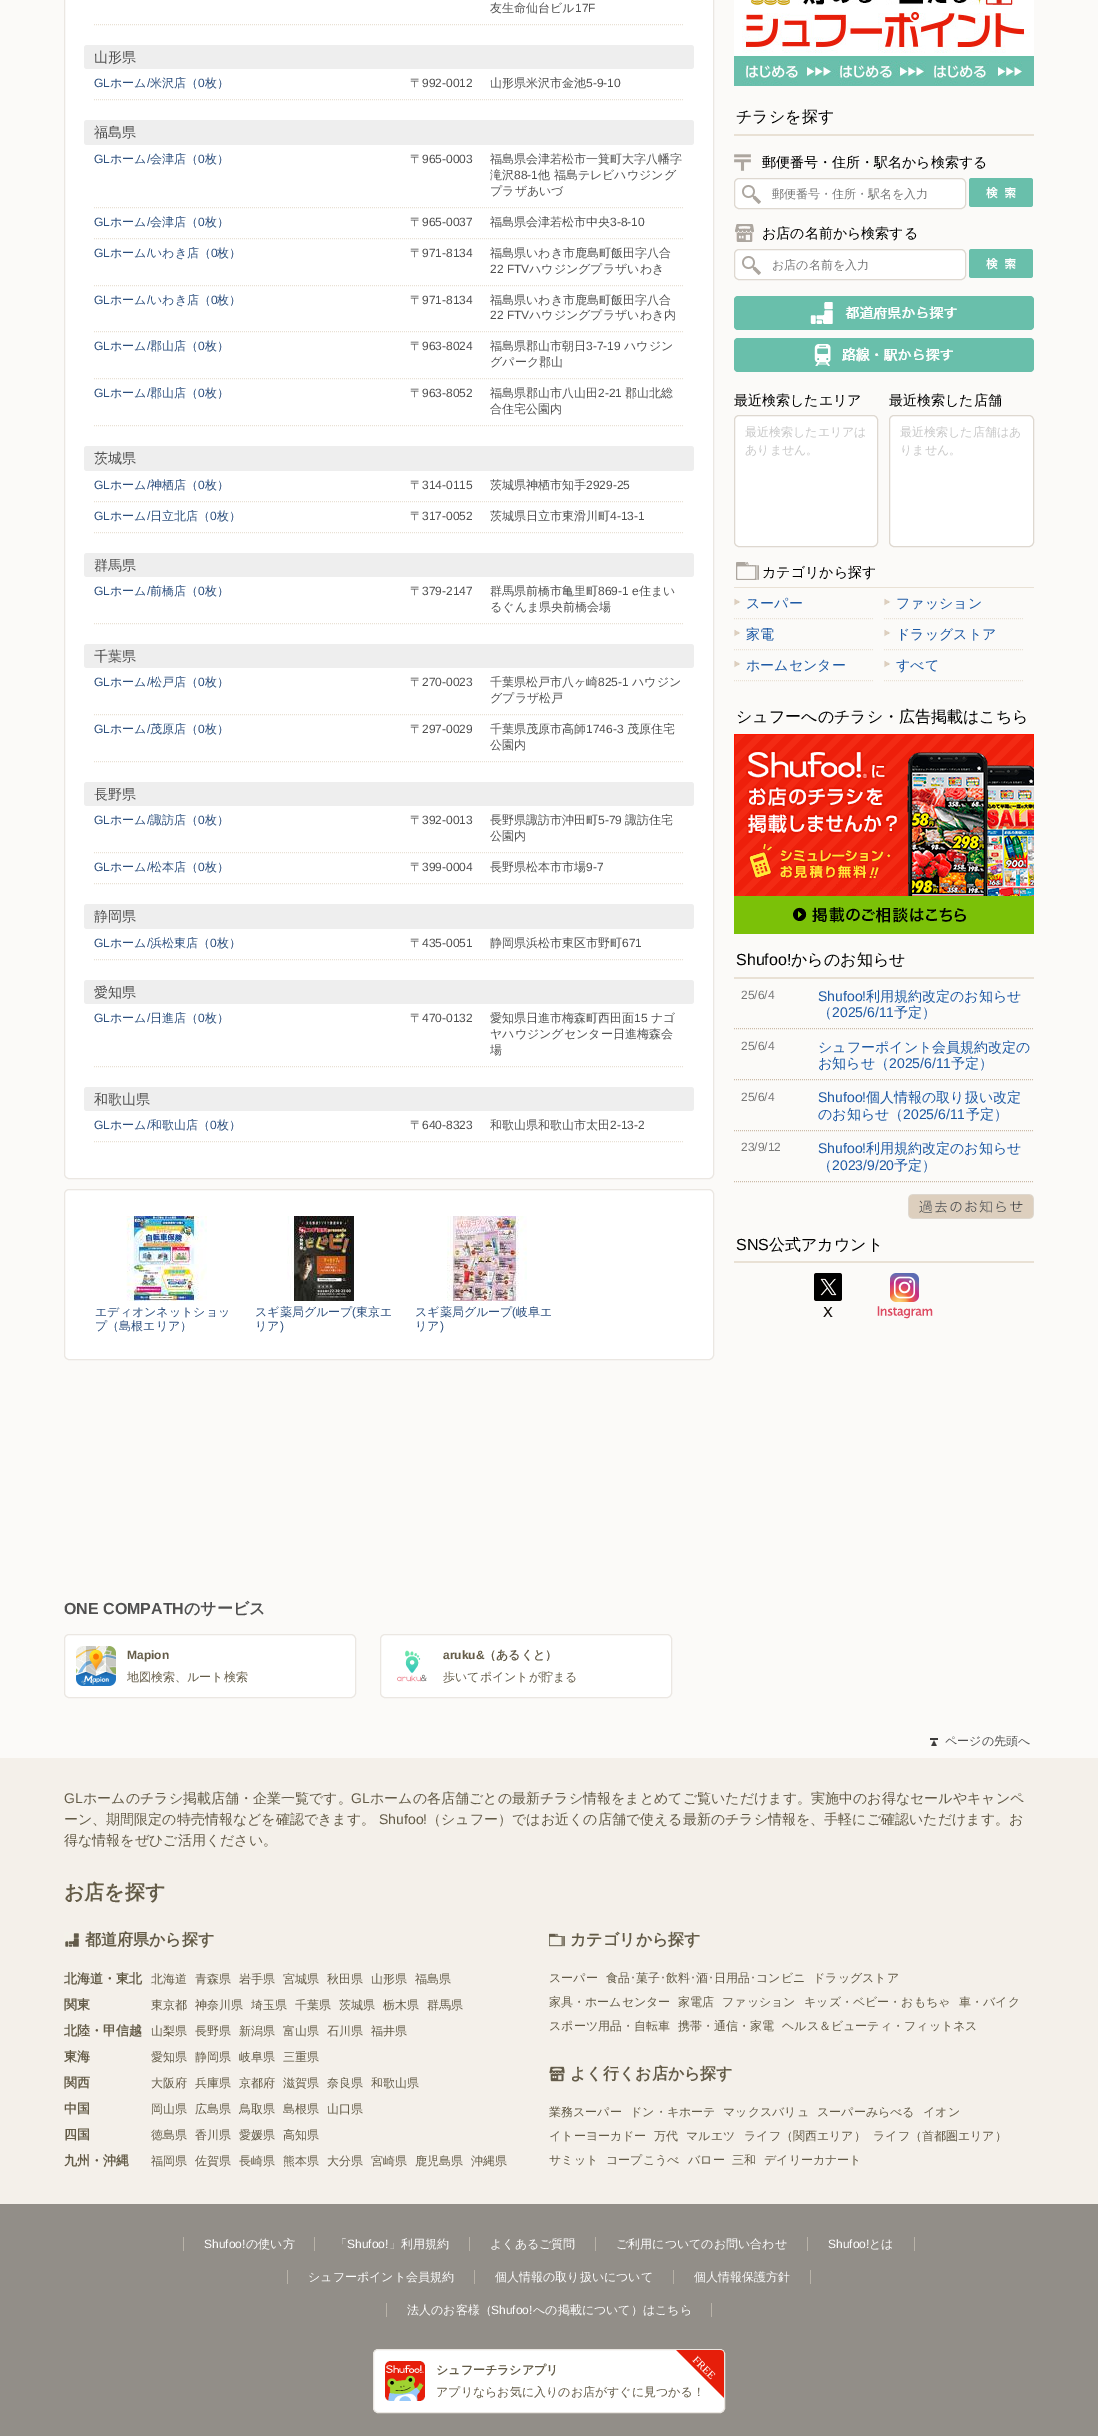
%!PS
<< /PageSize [1098 2436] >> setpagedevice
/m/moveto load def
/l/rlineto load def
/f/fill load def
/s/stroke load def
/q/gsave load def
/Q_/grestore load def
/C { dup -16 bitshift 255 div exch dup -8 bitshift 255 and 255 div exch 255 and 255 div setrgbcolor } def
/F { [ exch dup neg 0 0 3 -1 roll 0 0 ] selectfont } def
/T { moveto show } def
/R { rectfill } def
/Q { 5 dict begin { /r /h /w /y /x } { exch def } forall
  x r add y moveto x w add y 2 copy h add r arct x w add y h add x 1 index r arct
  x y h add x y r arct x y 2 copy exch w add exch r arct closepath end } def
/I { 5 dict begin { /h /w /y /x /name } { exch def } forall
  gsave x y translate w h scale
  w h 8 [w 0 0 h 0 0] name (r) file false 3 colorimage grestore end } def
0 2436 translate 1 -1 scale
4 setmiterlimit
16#FBFAF8 C
0 0 1098 2436 R
16#FFFFFF C
64.5 -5.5 649 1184 4.5 Q q f Q_
16#EBE7E2 C
s
16#E9E1D5 C
[1 1] 0 setdash
94 24.5 m 590 0 l s
/WenQuanYiZenHei-Medium 12 F
16#505050 C
(友生命仙台ビル) 490 12 T
/LiberationSans-Regular 12 F
(17F) 575 12 T
16#EEEEEE C
84 45 610 24 3 Q f
/WenQuanYiZenHei-Medium 14 F
16#505050 C
(山形県) 94 62 T
16#E9E1D5 C
94 99.5 m 590 0 l s
/LiberationSans-Regular 12 F
16#2C4F7E C
(GL) 94 87 T
/WenQuanYiZenHei-Medium 12 F
(ホーム 米沢店（) 110 87 T
/LiberationSans-Regular 12 F
(0) 198 87 T
/WenQuanYiZenHei-Medium 12 F
(枚）) 205 87 T
/LiberationSans-Regular 12 F
(/) 147 87 T
/WenQuanYiZenHei-Medium 12 F
16#505050 C
(〒) 410 87 T
/LiberationSans-Regular 12 F
(992-0012) 422 87 T
/WenQuanYiZenHei-Medium 12 F
(山形県米沢市金池) 490 87 T
/LiberationSans-Regular 12 F
(5-9-10) 586 87 T
16#EEEEEE C
84 120 610 25 3 Q f
/WenQuanYiZenHei-Medium 14 F
16#505050 C
(福島県) 94 137 T
16#E9E1D5 C
94 207.5 m 590 0 l s
/LiberationSans-Regular 12 F
16#2C4F7E C
(GL) 94 163 T
/WenQuanYiZenHei-Medium 12 F
(ホーム 会津店（) 110 163 T
/LiberationSans-Regular 12 F
(0) 198 163 T
/WenQuanYiZenHei-Medium 12 F
(枚）) 205 163 T
/LiberationSans-Regular 12 F
(/) 147 163 T
/WenQuanYiZenHei-Medium 12 F
16#505050 C
(〒) 410 163 T
/LiberationSans-Regular 12 F
(965-0003) 422 163 T
/WenQuanYiZenHei-Medium 12 F
(福島県会津若松市一箕町大字八幡字) 490 163 T
(滝沢) 490 179 T
/LiberationSans-Regular 12 F
(88-1) 514 179 T
/WenQuanYiZenHei-Medium 12 F
(他 福島テレビハウジング) 538 179 T
(プラザあいづ) 490 195 T
16#E9E1D5 C
94 238.5 m 590 0 l s
/LiberationSans-Regular 12 F
16#2C4F7E C
(GL) 94 226 T
/WenQuanYiZenHei-Medium 12 F
(ホーム 会津店（) 110 226 T
/LiberationSans-Regular 12 F
(0) 198 226 T
/WenQuanYiZenHei-Medium 12 F
(枚）) 205 226 T
/LiberationSans-Regular 12 F
(/) 147 226 T
/WenQuanYiZenHei-Medium 12 F
16#505050 C
(〒) 410 226 T
/LiberationSans-Regular 12 F
(965-0037) 422 226 T
/WenQuanYiZenHei-Medium 12 F
(福島県会津若松市中央) 490 226 T
/LiberationSans-Regular 12 F
(3-8-10) 610 226 T
16#E9E1D5 C
94 285.5 m 590 0 l s
16#2C4F7E C
(GL) 94 257 T
/WenQuanYiZenHei-Medium 12 F
(ホーム いわき店（) 110 257 T
(枚）) 217 257 T
/LiberationSans-Regular 12 F
(/) 147 257 T
(0) 211 257 T
/WenQuanYiZenHei-Medium 12 F
16#505050 C
(〒) 410 257 T
/LiberationSans-Regular 12 F
(971-8134) 422 257 T
/WenQuanYiZenHei-Medium 12 F
(福島県いわき市鹿島町飯田字八合) 490 257 T
/LiberationSans-Regular 12 F
(22 FTV) 490 273 T
/WenQuanYiZenHei-Medium 12 F
(ハウジングプラザいわき) 529 273 T
16#E9E1D5 C
94 331.5 m 590 0 l s
/LiberationSans-Regular 12 F
16#2C4F7E C
(GL) 94 304 T
/WenQuanYiZenHei-Medium 12 F
(ホーム いわき店（) 110 304 T
(枚）) 217 304 T
/LiberationSans-Regular 12 F
(/) 147 304 T
(0) 211 304 T
/WenQuanYiZenHei-Medium 12 F
16#505050 C
(〒) 410 304 T
/LiberationSans-Regular 12 F
(971-8134) 422 304 T
/WenQuanYiZenHei-Medium 12 F
(福島県いわき市鹿島町飯田字八合) 490 304 T
/LiberationSans-Regular 12 F
(22 FTV) 490 319 T
/WenQuanYiZenHei-Medium 12 F
(ハウジングプラザいわき内) 529 319 T
16#E9E1D5 C
94 378.5 m 590 0 l s
/LiberationSans-Regular 12 F
16#2C4F7E C
(GL) 94 350 T
/WenQuanYiZenHei-Medium 12 F
(ホーム 郡山店（) 110 350 T
/LiberationSans-Regular 12 F
(0) 198 350 T
/WenQuanYiZenHei-Medium 12 F
(枚）) 205 350 T
/LiberationSans-Regular 12 F
(/) 147 350 T
/WenQuanYiZenHei-Medium 12 F
16#505050 C
(〒) 410 350 T
/LiberationSans-Regular 12 F
(963-8024) 422 350 T
/WenQuanYiZenHei-Medium 12 F
(福島県郡山市朝日) 490 350 T
/LiberationSans-Regular 12 F
(3-7-19) 586 350 T
/WenQuanYiZenHei-Medium 12 F
(ハウジン) 624 350 T
(グパーク郡山) 490 366 T
16#E9E1D5 C
94 425.5 m 590 0 l s
/LiberationSans-Regular 12 F
16#2C4F7E C
(GL) 94 397 T
/WenQuanYiZenHei-Medium 12 F
(ホーム 郡山店（) 110 397 T
/LiberationSans-Regular 12 F
(0) 198 397 T
/WenQuanYiZenHei-Medium 12 F
(枚）) 205 397 T
/LiberationSans-Regular 12 F
(/) 147 397 T
/WenQuanYiZenHei-Medium 12 F
16#505050 C
(〒) 410 397 T
/LiberationSans-Regular 12 F
(963-8052) 422 397 T
/WenQuanYiZenHei-Medium 12 F
(福島県郡山市八山田) 490 397 T
/LiberationSans-Regular 12 F
(2-21) 598 397 T
/WenQuanYiZenHei-Medium 12 F
(郡山北総) 625 397 T
(合住宅公園内) 490 413 T
16#EEEEEE C
84 446 610 25 3 Q f
/WenQuanYiZenHei-Medium 14 F
16#505050 C
(茨城県) 94 463 T
16#E9E1D5 C
94 501.5 m 590 0 l s
/LiberationSans-Regular 12 F
16#2C4F7E C
(GL) 94 489 T
/WenQuanYiZenHei-Medium 12 F
(ホーム) 110 489 T
/LiberationSans-Regular 12 F
(/) 147 489 T
/WenQuanYiZenHei-Medium 12 F
(神栖店（) 150 489 T
/LiberationSans-Regular 12 F
(0) 198 489 T
/WenQuanYiZenHei-Medium 12 F
(枚）) 205 489 T
16#505050 C
(〒) 410 489 T
/LiberationSans-Regular 12 F
(314-0115) 422 489 T
/WenQuanYiZenHei-Medium 12 F
(茨城県神栖市知手) 490 489 T
/LiberationSans-Regular 12 F
(2929-25) 586 489 T
16#E9E1D5 C
94 532.5 m 590 0 l s
16#2C4F7E C
(GL) 94 520 T
/WenQuanYiZenHei-Medium 12 F
(ホーム 日立北店（) 110 520 T
/LiberationSans-Regular 12 F
(0) 210 520 T
/WenQuanYiZenHei-Medium 12 F
(枚）) 217 520 T
/LiberationSans-Regular 12 F
(/) 147 520 T
/WenQuanYiZenHei-Medium 12 F
16#505050 C
(〒) 410 520 T
/LiberationSans-Regular 12 F
(317-0052) 422 520 T
/WenQuanYiZenHei-Medium 12 F
(茨城県日立市東滑川町) 490 520 T
/LiberationSans-Regular 12 F
(4-13-1) 610 520 T
16#EEEEEE C
84 553 610 24 3 Q f
/WenQuanYiZenHei-Medium 14 F
16#505050 C
(群馬県) 94 570 T
16#E9E1D5 C
94 623.5 m 590 0 l s
/LiberationSans-Regular 12 F
16#2C4F7E C
(GL) 94 595 T
/WenQuanYiZenHei-Medium 12 F
(ホーム 前橋店（) 110 595 T
/LiberationSans-Regular 12 F
(0) 198 595 T
/WenQuanYiZenHei-Medium 12 F
(枚）) 205 595 T
/LiberationSans-Regular 12 F
(/) 147 595 T
/WenQuanYiZenHei-Medium 12 F
16#505050 C
(〒) 410 595 T
/LiberationSans-Regular 12 F
(379-2147) 422 595 T
/WenQuanYiZenHei-Medium 12 F
(群馬県前橋市亀里町) 490 595 T
/LiberationSans-Regular 12 F
(869-1 e) 598 595 T
/WenQuanYiZenHei-Medium 12 F
(住まい) 639 595 T
(るぐんま県央前橋会場) 490 611 T
16#EEEEEE C
84 644 610 24 3 Q f
/WenQuanYiZenHei-Medium 14 F
16#505050 C
(千葉県) 94 661 T
16#E9E1D5 C
94 714.5 m 590 0 l s
/LiberationSans-Regular 12 F
16#2C4F7E C
(GL) 94 686 T
/WenQuanYiZenHei-Medium 12 F
(ホーム) 110 686 T
/LiberationSans-Regular 12 F
(/) 147 686 T
/WenQuanYiZenHei-Medium 12 F
(松戸店（) 150 686 T
/LiberationSans-Regular 12 F
(0) 198 686 T
/WenQuanYiZenHei-Medium 12 F
(枚）) 205 686 T
16#505050 C
(〒) 410 686 T
/LiberationSans-Regular 12 F
(270-0023) 422 686 T
/WenQuanYiZenHei-Medium 12 F
(千葉県松戸市八ヶ崎) 490 686 T
/LiberationSans-Regular 12 F
(825-1) 598 686 T
/WenQuanYiZenHei-Medium 12 F
(ハウジン) 632 686 T
(グプラザ松戸) 490 702 T
16#E9E1D5 C
94 761.5 m 590 0 l s
/LiberationSans-Regular 12 F
16#2C4F7E C
(GL) 94 733 T
/WenQuanYiZenHei-Medium 12 F
(ホーム 茂原店（) 110 733 T
/LiberationSans-Regular 12 F
(0) 198 733 T
/WenQuanYiZenHei-Medium 12 F
(枚）) 205 733 T
/LiberationSans-Regular 12 F
(/) 147 733 T
/WenQuanYiZenHei-Medium 12 F
16#505050 C
(〒) 410 733 T
/LiberationSans-Regular 12 F
(297-0029) 422 733 T
/WenQuanYiZenHei-Medium 12 F
(千葉県茂原市高師) 490 733 T
/LiberationSans-Regular 12 F
(1746-3) 586 733 T
/WenQuanYiZenHei-Medium 12 F
(茂原住宅) 627 733 T
(公園内) 490 749 T
16#EEEEEE C
84 782 610 24 3 Q f
/WenQuanYiZenHei-Medium 14 F
16#505050 C
(長野県) 94 799 T
16#E9E1D5 C
94 852.5 m 590 0 l s
/LiberationSans-Regular 12 F
16#2C4F7E C
(GL) 94 824 T
/WenQuanYiZenHei-Medium 12 F
(ホーム 諏訪店（) 110 824 T
/LiberationSans-Regular 12 F
(0) 198 824 T
/WenQuanYiZenHei-Medium 12 F
(枚）) 205 824 T
/LiberationSans-Regular 12 F
(/) 147 824 T
/WenQuanYiZenHei-Medium 12 F
16#505050 C
(〒) 410 824 T
/LiberationSans-Regular 12 F
(392-0013) 422 824 T
/WenQuanYiZenHei-Medium 12 F
(長野県諏訪市沖田町) 490 824 T
/LiberationSans-Regular 12 F
(5-79) 598 824 T
/WenQuanYiZenHei-Medium 12 F
(諏訪住宅) 625 824 T
(公園内) 490 840 T
16#E9E1D5 C
94 883.5 m 590 0 l s
/LiberationSans-Regular 12 F
16#2C4F7E C
(GL) 94 871 T
/WenQuanYiZenHei-Medium 12 F
(ホーム) 110 871 T
/LiberationSans-Regular 12 F
(/) 147 871 T
/WenQuanYiZenHei-Medium 12 F
(松本店（) 150 871 T
/LiberationSans-Regular 12 F
(0) 198 871 T
/WenQuanYiZenHei-Medium 12 F
(枚）) 205 871 T
16#505050 C
(〒) 410 871 T
/LiberationSans-Regular 12 F
(399-0004) 422 871 T
/WenQuanYiZenHei-Medium 12 F
(長野県松本市市場) 490 871 T
/LiberationSans-Regular 12 F
(9-7) 586 871 T
16#EEEEEE C
84 904 610 25 3 Q f
/WenQuanYiZenHei-Medium 14 F
16#505050 C
(静岡県) 94 921 T
16#E9E1D5 C
94 959.5 m 590 0 l s
/LiberationSans-Regular 12 F
16#2C4F7E C
(GL) 94 947 T
/WenQuanYiZenHei-Medium 12 F
(ホーム 浜松東店（) 110 947 T
/LiberationSans-Regular 12 F
(0) 210 947 T
/WenQuanYiZenHei-Medium 12 F
(枚）) 217 947 T
/LiberationSans-Regular 12 F
(/) 147 947 T
/WenQuanYiZenHei-Medium 12 F
16#505050 C
(〒) 410 947 T
/LiberationSans-Regular 12 F
(435-0051) 422 947 T
/WenQuanYiZenHei-Medium 12 F
(静岡県浜松市東区市野町) 490 947 T
/LiberationSans-Regular 12 F
(671) 622 947 T
16#EEEEEE C
84 980 610 24 3 Q f
/WenQuanYiZenHei-Medium 14 F
16#505050 C
(愛知県) 94 997 T
16#E9E1D5 C
94 1066.5 m 590 0 l s
/LiberationSans-Regular 12 F
16#2C4F7E C
(GL) 94 1022 T
/WenQuanYiZenHei-Medium 12 F
(ホーム 日進店（) 110 1022 T
/LiberationSans-Regular 12 F
(0) 198 1022 T
/WenQuanYiZenHei-Medium 12 F
(枚）) 205 1022 T
/LiberationSans-Regular 12 F
(/) 147 1022 T
/WenQuanYiZenHei-Medium 12 F
16#505050 C
(〒) 410 1022 T
/LiberationSans-Regular 12 F
(470-0132) 422 1022 T
/WenQuanYiZenHei-Medium 12 F
(愛知県日進市梅森町西田面) 490 1022 T
/LiberationSans-Regular 12 F
(15) 634 1022 T
/WenQuanYiZenHei-Medium 12 F
(ナゴ) 651 1022 T
(ヤハウジングセンター日進梅森会) 490 1038 T
(場) 490 1054 T
16#EEEEEE C
84 1087 610 24 3 Q f
/WenQuanYiZenHei-Medium 14 F
16#505050 C
(和歌山県) 94 1104 T
16#E9E1D5 C
94 1141.5 m 590 0 l s
/LiberationSans-Regular 12 F
16#2C4F7E C
(GL) 94 1129 T
/WenQuanYiZenHei-Medium 12 F
(ホーム 和歌山店（) 110 1129 T
/LiberationSans-Regular 12 F
(0) 210 1129 T
/WenQuanYiZenHei-Medium 12 F
(枚）) 217 1129 T
/LiberationSans-Regular 12 F
(/) 147 1129 T
/WenQuanYiZenHei-Medium 12 F
16#505050 C
(〒) 410 1129 T
/LiberationSans-Regular 12 F
(640-8323) 422 1129 T
/WenQuanYiZenHei-Medium 12 F
(和歌山県和歌山市太田) 490 1129 T
/LiberationSans-Regular 12 F
(2-13-2) 610 1129 T
16#FFFFFF C
64.5 1189.5 649 170 4.5 Q q f Q_
16#EBE7E2 C
[] 0 setdash
s
(1.rgb) 126 1216 81 85 I
/WenQuanYiZenHei-Medium 12 F
16#2C4F7E C
(エディオンネットショッ) 95 1316 T
(プ（島根エリア）) 95 1330 T
(2.rgb) 287 1216 67 85 I
(スギ薬局グループ) 255 1316 T
/LiberationSans-Regular 12 F
(\() 352 1316 T
/WenQuanYiZenHei-Medium 12 F
(東京エ) 356 1316 T
(リア) 255 1330 T
/LiberationSans-Regular 12 F
(\)) 280 1330 T
(3.rgb) 447 1216 80 85 I
/WenQuanYiZenHei-Medium 12 F
(スギ薬局グループ) 415 1316 T
/LiberationSans-Regular 12 F
(\() 512 1316 T
/WenQuanYiZenHei-Medium 12 F
(岐阜エ) 516 1316 T
(リア) 415 1330 T
/LiberationSans-Regular 12 F
(\)) 440 1330 T
(4.rgb) 734 0 300 86 I
16#E9E1D5 C
734 134 300 2 R
/WenQuanYiZenHei-Medium 16 F
16#000000 C
(チラシを探す) 736 122 T
(5.rgb) 734 154 17 17 I
/WenQuanYiZenHei-Medium 14 F
(郵便番号・住所・駅名から検索する) 762 167 T
16#FFFFFF C
734.5 178.5 231 30 4.5 Q q f Q_
16#DED8D0 C
s
(6.rgb) 742 185 19 19 I
/WenQuanYiZenHei-Medium 12 F
16#787878 C
(郵便番号・住所・駅名を入力) 772 198 T
16#FFFFFF C
969 178 64 29 R
(7.rgb) 969 178 64 29 I
(8.rgb) 735 224 19 18 I
/WenQuanYiZenHei-Medium 14 F
16#000000 C
(お店の名前から検索する) 762 238 T
16#FFFFFF C
734.5 249.5 231 30 4.5 Q q f Q_
16#DED8D0 C
s
(6.rgb) 742 256 19 19 I
/WenQuanYiZenHei-Medium 12 F
16#787878 C
(お店の名前を入力) 772 269 T
16#FFFFFF C
969 249 64 29 R
(7.rgb) 969 249 64 29 I
16#69BFAB C
734 296 300 34 4 Q f
(9.rgb) 810 302 147 22 I
734 338 300 34 4 Q f
(10.rgb) 814 344 139 22 I
/WenQuanYiZenHei-Medium 14 F
16#000000 C
(最近検索したエリア) 734 405 T
16#FFFFFF C
734.5 415.5 143 131 4.5 Q q f Q_
16#DED8D0 C
s
/WenQuanYiZenHei-Medium 12 F
16#C8C8C8 C
(最近検索したエリアは) 745 436 T
(ありません。) 745 454 T
/WenQuanYiZenHei-Medium 14 F
16#000000 C
(最近検索した店舗) 889 405 T
16#FFFFFF C
889.5 415.5 144 131 4.5 Q q f Q_
16#DED8D0 C
s
/WenQuanYiZenHei-Medium 12 F
16#C8C8C8 C
(最近検索した店舗はあ) 900 436 T
(りません。) 900 454 T
16#E9E1D5 C
734 587 300 1 R
(11.rgb) 736 562 23 18 I
/WenQuanYiZenHei-Medium 14 F
16#000000 C
(カテゴリから探す) 762 577 T
16#E9E1D5 C
[1 1] 0 setdash
734 618.5 m 140 0 l s
(12.rgb) 734 598 7 8 I
16#1E5AA5 C
(スーパー) 746 608 T
16#E9E1D5 C
884 618.5 m 140 0 l s
(12.rgb) 884 598 7 8 I
16#1E5AA5 C
(ファッション) 896 608 T
16#E9E1D5 C
734 649.5 m 140 0 l s
(12.rgb) 734 629 7 8 I
16#1E5AA5 C
(家電) 746 639 T
16#E9E1D5 C
884 649.5 m 140 0 l s
(12.rgb) 884 629 7 8 I
16#1E5AA5 C
(ドラッグストア) 896 639 T
16#E9E1D5 C
734 680.5 m 140 0 l s
(12.rgb) 734 660 7 8 I
16#1E5AA5 C
(ホームセンター) 746 670 T
16#E9E1D5 C
884 680.5 m 140 0 l s
(12.rgb) 884 660 7 8 I
16#1E5AA5 C
(すべて) 896 670 T
/WenQuanYiZenHei-Medium 16 F
16#000000 C
(シュフーへのチラシ・広告掲載はこちら) 736 722 T
(13.rgb) 734 734 300 200 I
16#E9E1D5 C
734 977 300 2 R
/LiberationSans-Regular 16 F
16#000000 C
(Shufoo!) 736 965 T
/WenQuanYiZenHei-Medium 16 F
(からのお知らせ) 791 965 T
16#CCBBA8 C
734 1028.5 m 300 0 l s
/LiberationSans-Regular 12 F
16#787878 C
(25/6/4) 741 999 T
/LiberationSans-Regular 14 F
16#1E5AA5 C
(Shufoo!) 818 1001 T
/WenQuanYiZenHei-Medium 14 F
(利用規約改定のお知らせ) 866 1001 T
(（) 818 1017 T
/LiberationSans-Regular 14 F
(2025/6/11) 832 1017 T
/WenQuanYiZenHei-Medium 14 F
(予定）) 894 1017 T
16#CCBBA8 C
734 1079.5 m 300 0 l s
/LiberationSans-Regular 12 F
16#787878 C
(25/6/4) 741 1050 T
/WenQuanYiZenHei-Medium 14 F
16#1E5AA5 C
(シュフーポイント会員規約改定の) 818 1052 T
(お知らせ（) 818 1068 T
/LiberationSans-Regular 14 F
(2025/6/11) 889 1068 T
/WenQuanYiZenHei-Medium 14 F
(予定）) 951 1068 T
16#CCBBA8 C
734 1130.5 m 300 0 l s
/LiberationSans-Regular 12 F
16#787878 C
(25/6/4) 741 1101 T
/LiberationSans-Regular 14 F
16#1E5AA5 C
(Shufoo!) 818 1102 T
/WenQuanYiZenHei-Medium 14 F
(個人情報の取り扱い改定) 866 1102 T
(のお知らせ（) 818 1119 T
/LiberationSans-Regular 14 F
(2025/6/11) 903 1119 T
/WenQuanYiZenHei-Medium 14 F
(予定）) 966 1119 T
16#CCBBA8 C
734 1181.5 m 300 0 l s
/LiberationSans-Regular 12 F
16#787878 C
(23/9/12) 741 1151 T
/LiberationSans-Regular 14 F
16#1E5AA5 C
(Shufoo!) 818 1153 T
/WenQuanYiZenHei-Medium 14 F
(利用規約改定のお知らせ) 866 1153 T
(（) 818 1170 T
/LiberationSans-Regular 14 F
(2023/9/20) 832 1170 T
/WenQuanYiZenHei-Medium 14 F
(予定）) 894 1170 T
(14.rgb) 908 1194 126 25 I
16#E9E1D5 C
734 1261 300 2 R
/LiberationSans-Regular 16 F
16#000000 C
(SNS) 736 1250 T
/WenQuanYiZenHei-Medium 16 F
(公式アカウント) 769 1250 T
(15.rgb) 814 1273 28 44 I
(16.rgb) 877 1273 56 46 I
/LiberationSans-Bold 16 F
16#505050 C
(ONE COMPATH) 64 1614 T
/WenQuanYiZenHei-Bold 16 F
(のサービス) 184 1614 T
16#FFFFFF C
64.5 1634.5 291 63 4.5 Q q f Q_
16#EBE7E2 C
[] 0 setdash
s
(17.rgb) 76 1646 40 40 I
/LiberationSans-Bold 12 F
16#635B47 C
(Mapion) 127 1659 T
/WenQuanYiZenHei-Medium 12 F
(地図検索、ルート検索) 127 1681 T
16#FFFFFF C
380.5 1634.5 291 63 4.5 Q q f Q_
16#EBE7E2 C
s
(18.rgb) 397 1650 30 32 I
/LiberationSans-Bold 12 F
16#635B47 C
(aruku&) 443 1659 T
/WenQuanYiZenHei-Bold 12 F
(（あるくと）) 484 1659 T
/WenQuanYiZenHei-Medium 12 F
(歩いてポイントが貯まる) 443 1681 T
(19.rgb) 930 1738 8 8 I
16#505050 C
(ページの先頭へ) 945 1745 T
16#F4F0EA C
0 1758 1098 446 R
/LiberationSans-Regular 14 F
16#635B47 C
(GL) 64 1803 T
/WenQuanYiZenHei-Medium 14 F
(ホームのチラシ掲載店舗・企業一覧です。) 83 1803 T
/LiberationSans-Regular 14 F
(GL) 351 1803 T
/WenQuanYiZenHei-Medium 14 F
(ホームの各店舗ごとの最新チラシ情報をまとめてご覧いただけます。実施中のお得なセールやキャンペ) 370 1803 T
(ーン、期間限定の特売情報などを確認できます。) 64 1824 T
/LiberationSans-Regular 14 F
(Shufoo!) 379 1824 T
/WenQuanYiZenHei-Medium 14 F
(（シュフー）ではお近くの店舗で使える最新のチラシ情報を、手軽にご確認いただけます。お) 427 1824 T
(得な情報をぜひご活用ください。) 64 1845 T
/WenQuanYiZenHei-Bold 20 F
(お店を探す) 64 1899 T
(20.rgb) 64 1932 16 16 I
/WenQuanYiZenHei-Bold 16 F
(都道府県から探す) 85 1945 T
/WenQuanYiZenHei-Bold 13 F
(北海道・東北) 64 1983 T
/WenQuanYiZenHei-Medium 12 F
(北海道) 151 1983 T
(青森県) 195 1983 T
(岩手県) 239 1983 T
(宮城県) 283 1983 T
(秋田県) 327 1983 T
(山形県) 371 1983 T
(福島県) 415 1983 T
/WenQuanYiZenHei-Bold 13 F
(関東) 64 2009 T
/WenQuanYiZenHei-Medium 12 F
(東京都) 151 2009 T
(神奈川県) 195 2009 T
(埼玉県) 251 2009 T
(千葉県) 295 2009 T
(茨城県) 339 2009 T
(栃木県) 383 2009 T
(群馬県) 427 2009 T
/WenQuanYiZenHei-Bold 13 F
(北陸・甲信越) 64 2035 T
/WenQuanYiZenHei-Medium 12 F
(山梨県) 151 2035 T
(長野県) 195 2035 T
(新潟県) 239 2035 T
(富山県) 283 2035 T
(石川県) 327 2035 T
(福井県) 371 2035 T
/WenQuanYiZenHei-Bold 13 F
(東海) 64 2061 T
/WenQuanYiZenHei-Medium 12 F
(愛知県) 151 2061 T
(静岡県) 195 2061 T
(岐阜県) 239 2061 T
(三重県) 283 2061 T
/WenQuanYiZenHei-Bold 13 F
(関西) 64 2087 T
/WenQuanYiZenHei-Medium 12 F
(大阪府) 151 2087 T
(兵庫県) 195 2087 T
(京都府) 239 2087 T
(滋賀県) 283 2087 T
(奈良県) 327 2087 T
(和歌山県) 371 2087 T
/WenQuanYiZenHei-Bold 13 F
(中国) 64 2113 T
/WenQuanYiZenHei-Medium 12 F
(岡山県) 151 2113 T
(広島県) 195 2113 T
(鳥取県) 239 2113 T
(島根県) 283 2113 T
(山口県) 327 2113 T
/WenQuanYiZenHei-Bold 13 F
(四国) 64 2139 T
/WenQuanYiZenHei-Medium 12 F
(徳島県) 151 2139 T
(香川県) 195 2139 T
(愛媛県) 239 2139 T
(高知県) 283 2139 T
/WenQuanYiZenHei-Bold 13 F
(九州・沖縄) 64 2165 T
/WenQuanYiZenHei-Medium 12 F
(福岡県) 151 2165 T
(佐賀県) 195 2165 T
(長崎県) 239 2165 T
(熊本県) 283 2165 T
(大分県) 327 2165 T
(宮崎県) 371 2165 T
(鹿児島県) 415 2165 T
(沖縄県) 471 2165 T
(21.rgb) 549 1933 16 14 I
/WenQuanYiZenHei-Bold 16 F
(カテゴリから探す) 570 1945 T
/WenQuanYiZenHei-Medium 12 F
(スーパー) 549 1982 T
(食品) 606 1982 T
/IPAPGothic-Regular 12 F
(･) 630 1982 T
/WenQuanYiZenHei-Medium 12 F
(菓子) 636 1982 T
/IPAPGothic-Regular 12 F
(･) 660 1982 T
/WenQuanYiZenHei-Medium 12 F
(飲料) 666 1982 T
/IPAPGothic-Regular 12 F
(･) 690 1982 T
/WenQuanYiZenHei-Medium 12 F
(酒) 696 1982 T
/IPAPGothic-Regular 12 F
(･) 708 1982 T
/WenQuanYiZenHei-Medium 12 F
(日用品) 714 1982 T
/IPAPGothic-Regular 12 F
(･) 750 1982 T
/WenQuanYiZenHei-Medium 12 F
(コンビニ) 756 1982 T
(ドラッグストア) 813 1982 T
(家具・ホームセンター) 549 2006 T
(家電店) 678 2006 T
(ファッション) 722 2006 T
(キッズ・ベビー・おもちゃ) 804 2006 T
(車・バイク) 959 2006 T
(スポーツ用品・自転車) 549 2030 T
(携帯・通信・家電) 678 2030 T
(ヘルス＆ビューティ・フィットネス) 782 2030 T
(22.rgb) 549 2066 16 16 I
/WenQuanYiZenHei-Bold 16 F
(よく行くお店から探す) 570 2079 T
/WenQuanYiZenHei-Medium 12 F
(業務スーパー) 549 2116 T
(ドン・キホーテ) 630 2116 T
(マックスバリュ) 723 2116 T
(スーパーみらべる) 817 2116 T
(イオン) 923 2116 T
(イトーヨーカドー) 549 2140 T
(万代) 654 2140 T
(マルエツ) 686 2140 T
(ライフ（関西エリア）) 744 2140 T
(ライフ（首都圏エリア）) 873 2140 T
(サミット) 549 2164 T
(コープこうべ) 606 2164 T
(バロー) 688 2164 T
(三和) 732 2164 T
(デイリーカナート) 764 2164 T
16#928E88 C
0 2204 1098 232 R
16#B9B3A9 C
314 2237 1 14 R
183 2237 1 14 R
/LiberationSans-Regular 12 F
16#FFFFFF C
(Shufoo!) 204 2248 T
/WenQuanYiZenHei-Medium 12 F
(の使い方) 246 2248 T
16#B9B3A9 C
469 2237 1 14 R
16#FFFFFF C
(「) 335 2248 T
/LiberationSans-Regular 12 F
(Shufoo!) 347 2248 T
/WenQuanYiZenHei-Medium 12 F
(」利用規約) 389 2248 T
16#B9B3A9 C
595 2237 1 14 R
16#FFFFFF C
(よくあるご質問) 490 2248 T
16#B9B3A9 C
807 2237 1 14 R
16#FFFFFF C
(ご利用についてのお問い合わせ) 616 2248 T
16#B9B3A9 C
914 2237 1 14 R
/LiberationSans-Regular 12 F
16#FFFFFF C
(Shufoo!) 828 2248 T
/WenQuanYiZenHei-Medium 12 F
(とは) 869 2248 T
16#B9B3A9 C
474 2270 1 14 R
287 2270 1 14 R
16#FFFFFF C
(シュフーポイント会員規約) 308 2281 T
16#B9B3A9 C
673 2270 1 14 R
16#FFFFFF C
(個人情報の取り扱いについて) 495 2281 T
16#B9B3A9 C
810 2270 1 14 R
16#FFFFFF C
(個人情報保護方針) 694 2281 T
16#B9B3A9 C
711 2303 1 14 R
386 2303 1 14 R
16#FFFFFF C
(法人のお客様（) 407 2314 T
/LiberationSans-Regular 12 F
(Shufoo!) 491 2314 T
/WenQuanYiZenHei-Medium 12 F
(への掲載について）はこちら) 533 2314 T
373.5 2349.5 351 63 4.5 Q q f Q_
16#EBE7E2 C
s
(23.rgb) 385 2361 40 40 I
16#635B47 C
(アプリならお気に入りのお店がすぐに見つかる！) 436 2396 T
(24.rgb) 676 2350 48 48 I
/WenQuanYiZenHei-Bold 12 F
(シュフーチラシアプリ) 436 2374 T
showpage
